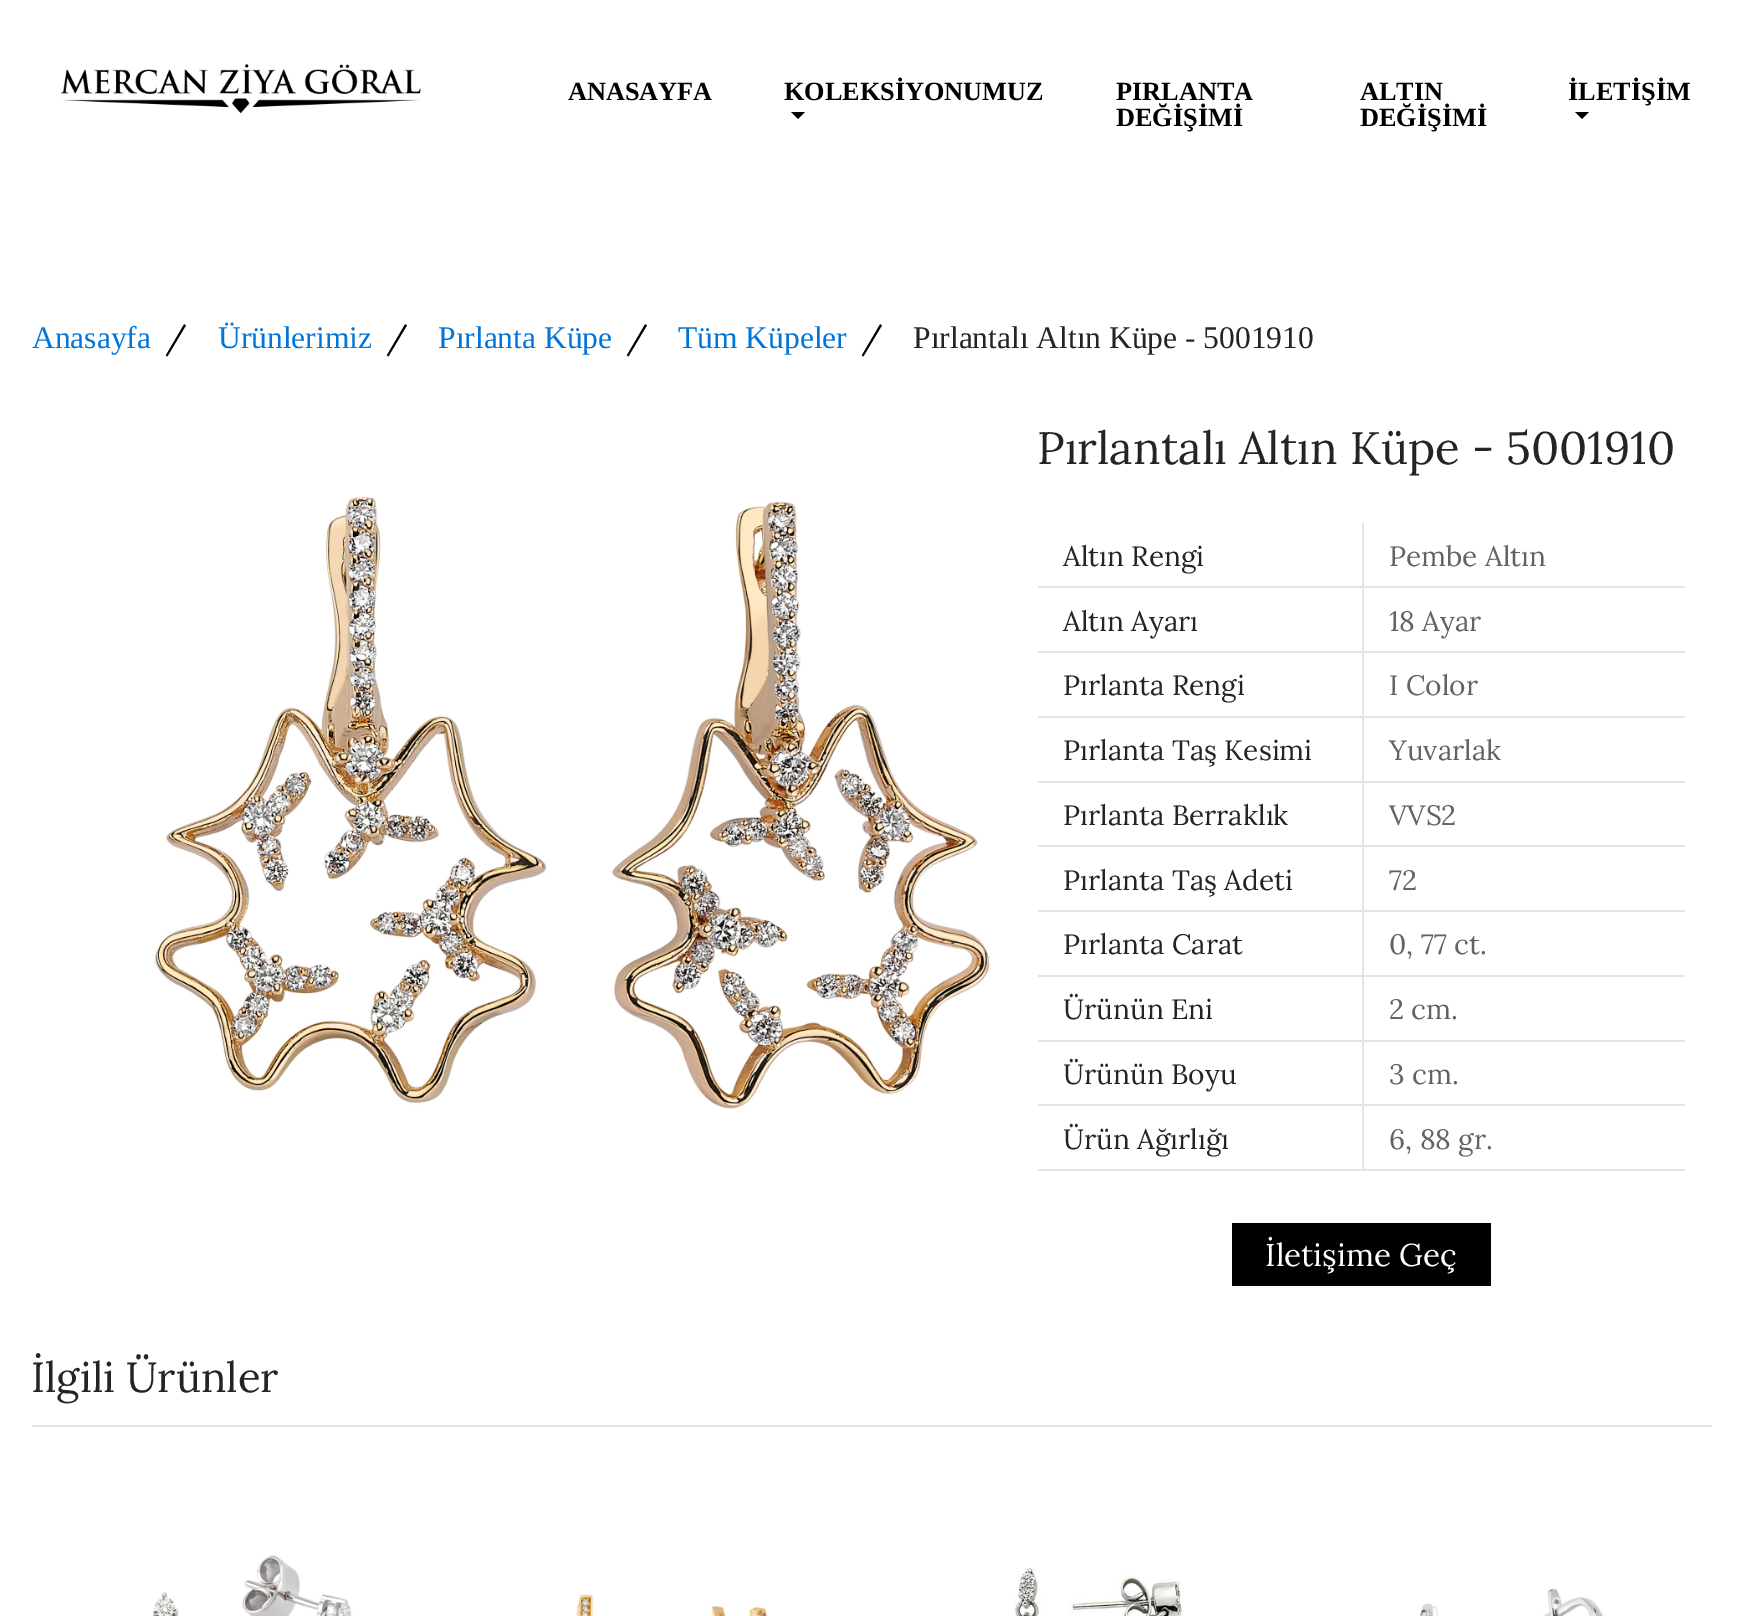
%!PS
<< /PageSize [1740 1616] >> setpagedevice
/m/moveto load def
/l/rlineto load def
/z/closepath load def
/f/fill load def
/C { dup -16 bitshift 255 div exch dup -8 bitshift 255 and 255 div exch 255 and 255 div setrgbcolor } def
/F { [ exch dup neg 0 0 3 -1 roll 0 0 ] selectfont } def
/T { moveto show } def
/R { rectfill } def
/I { 5 dict begin { /h /w /y /x /name } { exch def } forall
  gsave x y translate w h scale
  w h 8 [w 0 0 h 0 0] name (r) file false 3 colorimage grestore end } def
0 1616 translate 1 -1 scale
4 setmiterlimit
16#FFFFFF C
0 0 1740 1616 R
(1.rgb) 60 64 361 50 I
/LiberationSerif-Bold 26.25 F
16#000000 C
(ANASAYFA) 568 100 T
(KOLEKSİYONUMUZ) 784 100 T
791 112 m 14 0 l -7 7 l z f
(PIRLANTA) 1116 100 T
(DEĞİŞİMİ) 1116 126 T
(ALTIN) 1360 100 T
(DEĞİŞİMİ) 1360 126 T
(İLETİŞİM) 1568 100 T
1575 112 m 14 0 l -7 7 l z f
/LiberationSerif-Regular 31.5 F
16#0275D8 C
(Anasayfa) 32 348 T
/Lora-Regular 31.5 F
16#000000 C
(/) 165 348 T
/LiberationSerif-Regular 31.5 F
16#0275D8 C
(Ürünlerimiz) 218 348 T
/Lora-Regular 31.5 F
16#000000 C
(/) 386 348 T
/LiberationSerif-Regular 31.5 F
16#0275D8 C
(Pırlanta Küpe) 438 348 T
/Lora-Regular 31.5 F
16#000000 C
(/) 626 348 T
/LiberationSerif-Regular 31.5 F
16#0275D8 C
(Tüm Küpeler) 678 348 T
/Lora-Regular 31.5 F
16#000000 C
(/) 861 348 T
/LiberationSerif-Regular 31.5 F
16#242424 C
(Pırlantalı Altın Küpe - 5001910) 913 348 T
(2.rgb) 155 496 835 613 I
/Lora-Regular 45.5 F
(Pırlantalı Altın Küpe - 5001910) 1037 464 T
16#E4E4E4 C
1038 586 647 2 R
/Lora-Regular 28 F
16#242424 C
(Altın Rengi) 1063 566 T
16#E4E4E4 C
1362 523 2 65 R
16#636363 C
(Pembe Altın) 1389 566 T
16#E4E4E4 C
1038 651 647 2 R
16#242424 C
(Altın Ayarı) 1063 631 T
16#E4E4E4 C
1362 588 2 65 R
16#636363 C
(18 Ayar) 1389 631 T
16#E4E4E4 C
1038 716 647 2 R
16#242424 C
(Pırlanta Rengi) 1063 695 T
16#E4E4E4 C
1362 653 2 65 R
16#636363 C
(I Color) 1389 695 T
16#E4E4E4 C
1038 781 647 2 R
16#242424 C
(Pırlanta Taş Kesimi) 1063 760 T
16#E4E4E4 C
1362 718 2 64 R
16#636363 C
(Yuvarlak) 1389 760 T
16#E4E4E4 C
1038 845 647 2 R
16#242424 C
(Pırlanta Berraklık) 1063 825 T
16#E4E4E4 C
1362 782 2 65 R
16#636363 C
(VVS2) 1389 825 T
16#E4E4E4 C
1038 910 647 2 R
16#242424 C
(Pırlanta Taş Adeti) 1063 890 T
16#E4E4E4 C
1362 847 2 65 R
16#636363 C
(72) 1389 890 T
16#E4E4E4 C
1038 975 647 2 R
16#242424 C
(Pırlanta Carat) 1063 954 T
16#E4E4E4 C
1362 912 2 65 R
16#636363 C
(0, 77 ct.) 1389 954 T
16#E4E4E4 C
1038 1040 647 2 R
16#242424 C
(Ürünün Eni) 1063 1019 T
16#E4E4E4 C
1362 977 2 64 R
16#636363 C
(2 cm.) 1389 1019 T
16#E4E4E4 C
1038 1104 647 2 R
16#242424 C
(Ürünün Boyu) 1063 1084 T
16#E4E4E4 C
1362 1041 2 65 R
16#636363 C
(3 cm.) 1389 1084 T
16#E4E4E4 C
1038 1169 647 2 R
16#242424 C
(Ürün Ağırlığı) 1063 1149 T
16#E4E4E4 C
1362 1106 2 65 R
16#636363 C
(6, 88 gr.) 1389 1149 T
16#000000 C
1232 1223 259 63 R
/Lora-Regular 31.5 F
16#FFFFFF C
(İletişime Geç) 1265 1266 T
16#E4E4E4 C
32 1425 1680 2 R
/Lora-Regular 42 F
16#242424 C
(İlgili Ürünler) 31 1392 T
(3.rgb) 152 1555 201 61 I
(4.rgb) 576 1594 192 22 I
(5.rgb) 1013 1568 171 48 I
(6.rgb) 1420 1588 183 28 I
showpage
